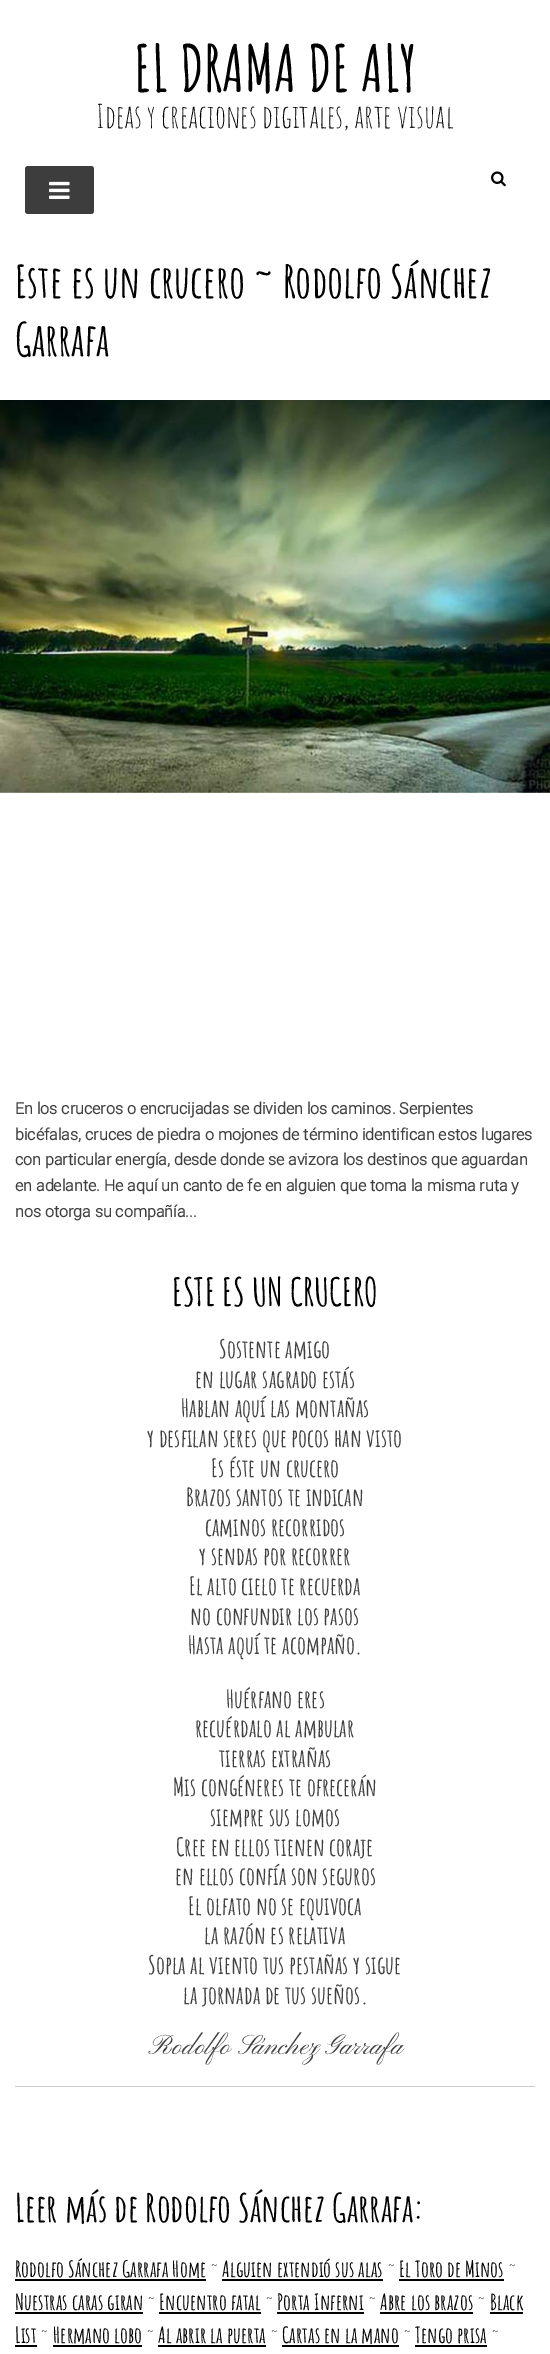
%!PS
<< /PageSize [550 2354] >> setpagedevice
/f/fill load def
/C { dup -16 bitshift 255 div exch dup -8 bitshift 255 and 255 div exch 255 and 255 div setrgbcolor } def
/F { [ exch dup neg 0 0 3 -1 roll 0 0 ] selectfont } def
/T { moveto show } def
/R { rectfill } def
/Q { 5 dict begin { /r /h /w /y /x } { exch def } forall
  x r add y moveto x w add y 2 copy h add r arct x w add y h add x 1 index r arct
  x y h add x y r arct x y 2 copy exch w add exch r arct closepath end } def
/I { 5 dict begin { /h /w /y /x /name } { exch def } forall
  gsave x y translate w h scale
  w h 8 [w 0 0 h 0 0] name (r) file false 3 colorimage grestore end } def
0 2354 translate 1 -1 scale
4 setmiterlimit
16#FFFFFF C
0 0 550 2354 R
/AmaticSC-Bold 64 F
16#000000 C
(EL DRAMA DE ALY) 134 92 T
/AmaticSC-Regular 32 F
(Ideas y creaciones digitales, arte visual) 96 128 T
16#3D3D3D C
25 166 69 48 3 Q f
(1.rgb) 49 181 21 18 I
(2.rgb) 491 171 15 16 I
/AmaticSC-Bold 44.75 F
16#000000 C
(Este es un crucero ~ Rodolfo Sánchez) 15 298 T
(Garrafa) 15 356 T
(3.rgb) 0 400 550 393 I
/Roboto-Bold 16 F
16#404040 C
(En los cruceros o encrucijadas se dividen los caminos. Serpientes) 15 1114 T
(bicéfalas, cruces de piedra o mojones de término identifican estos lugares) 15 1140 T
(con particular energía, desde donde se avizora los destinos que aguardan) 15 1165 T
(en adelante. He aquí un canto de fe en alguien que toma la misma ruta y) 15 1191 T
(nos otorga su compañía...) 15 1217 T
/AmaticSC-Bold 38.4 F
16#000000 C
(ESTE ES UN CRUCERO) 172 1306 T
/AmaticSC-Bold 25 F
16#404040 C
(Sostente amigo) 219 1358 T
(en lugar sagrado estás) 195 1388 T
(Hablan aquí las montañas) 181 1417 T
(y desfilan seres que pocos han visto) 147 1447 T
(Es éste un crucero) 211 1477 T
(Brazos santos te indican) 186 1506 T
(caminos recorridos) 205 1536 T
(y sendas por recorrer) 199 1565 T
(El alto cielo te recuerda) 189 1595 T
(no confundir los pasos) 190 1625 T
(Hasta aquí te acompaño.) 188 1654 T
(Huérfano eres) 226 1708 T
(recuérdalo al ambular) 195 1737 T
(tierras extrañas) 219 1767 T
(Mis congéneres te ofrecerán) 173 1796 T
(siempre sus lomos) 210 1826 T
(Cree en ellos tienen coraje) 176 1856 T
(en ellos confía son seguros) 175 1885 T
(El olfato no se equivoca) 188 1915 T
(la razón es relativa) 204 1944 T
(Sopla al viento tus pestañas y sigue) 148 1974 T
(la jornada de tus sueños.) 183 2004 T
/PinyonScript-Regular 28 F
(Rodolfo Sánchez Garrafa) 148 2054 T
16#CCCCCC C
15 2086 520 1 R
/AmaticSC-Bold 38.4 F
16#000000 C
(Leer más de Rodolfo Sánchez Garrafa:) 15 2222 T
/AmaticSC-Bold 22 F
(Rodolfo Sánchez Garrafa Home) 15 2277 T
15 2279 191 2 R
/AmaticSC-Regular 22 F
16#404040 C
(~) 210 2277 T
/AmaticSC-Bold 22 F
16#000000 C
(Alguien extendió sus alas) 222 2277 T
222 2279 161 2 R
/AmaticSC-Regular 22 F
16#404040 C
(~) 387 2277 T
/AmaticSC-Bold 22 F
16#000000 C
(El Toro de Minos) 399 2277 T
399 2279 105 2 R
/AmaticSC-Regular 22 F
16#404040 C
(~) 508 2277 T
/AmaticSC-Bold 22 F
16#000000 C
(Nuestras caras giran) 15 2310 T
15 2312 128 2 R
/AmaticSC-Regular 22 F
16#404040 C
(~) 147 2310 T
/AmaticSC-Bold 22 F
16#000000 C
(Encuentro fatal) 159 2310 T
159 2312 102 2 R
/AmaticSC-Regular 22 F
16#404040 C
(~) 265 2310 T
/AmaticSC-Bold 22 F
16#000000 C
(Porta Inferni) 277 2310 T
277 2312 87 2 R
/AmaticSC-Regular 22 F
16#404040 C
(~) 368 2310 T
/AmaticSC-Bold 22 F
16#000000 C
(Abre los brazos) 380 2310 T
380 2312 93 2 R
/AmaticSC-Regular 22 F
16#404040 C
(~) 477 2310 T
/AmaticSC-Bold 22 F
16#000000 C
(Black) 490 2310 T
490 2312 33 2 R
(List) 15 2343 T
15 2345 22 2 R
/AmaticSC-Regular 22 F
16#404040 C
(~) 40 2343 T
/AmaticSC-Bold 22 F
16#000000 C
(Hermano lobo) 53 2343 T
53 2345 89 2 R
/AmaticSC-Regular 22 F
16#404040 C
(~) 146 2343 T
/AmaticSC-Bold 22 F
16#000000 C
(Al abrir la puerta) 158 2343 T
158 2345 108 2 R
/AmaticSC-Regular 22 F
16#404040 C
(~) 270 2343 T
/AmaticSC-Bold 22 F
16#000000 C
(Cartas en la mano) 282 2343 T
282 2345 117 2 R
/AmaticSC-Regular 22 F
16#404040 C
(~) 403 2343 T
/AmaticSC-Bold 22 F
16#000000 C
(Tengo prisa) 415 2343 T
415 2345 72 2 R
/AmaticSC-Regular 22 F
16#404040 C
(~) 491 2343 T
showpage
